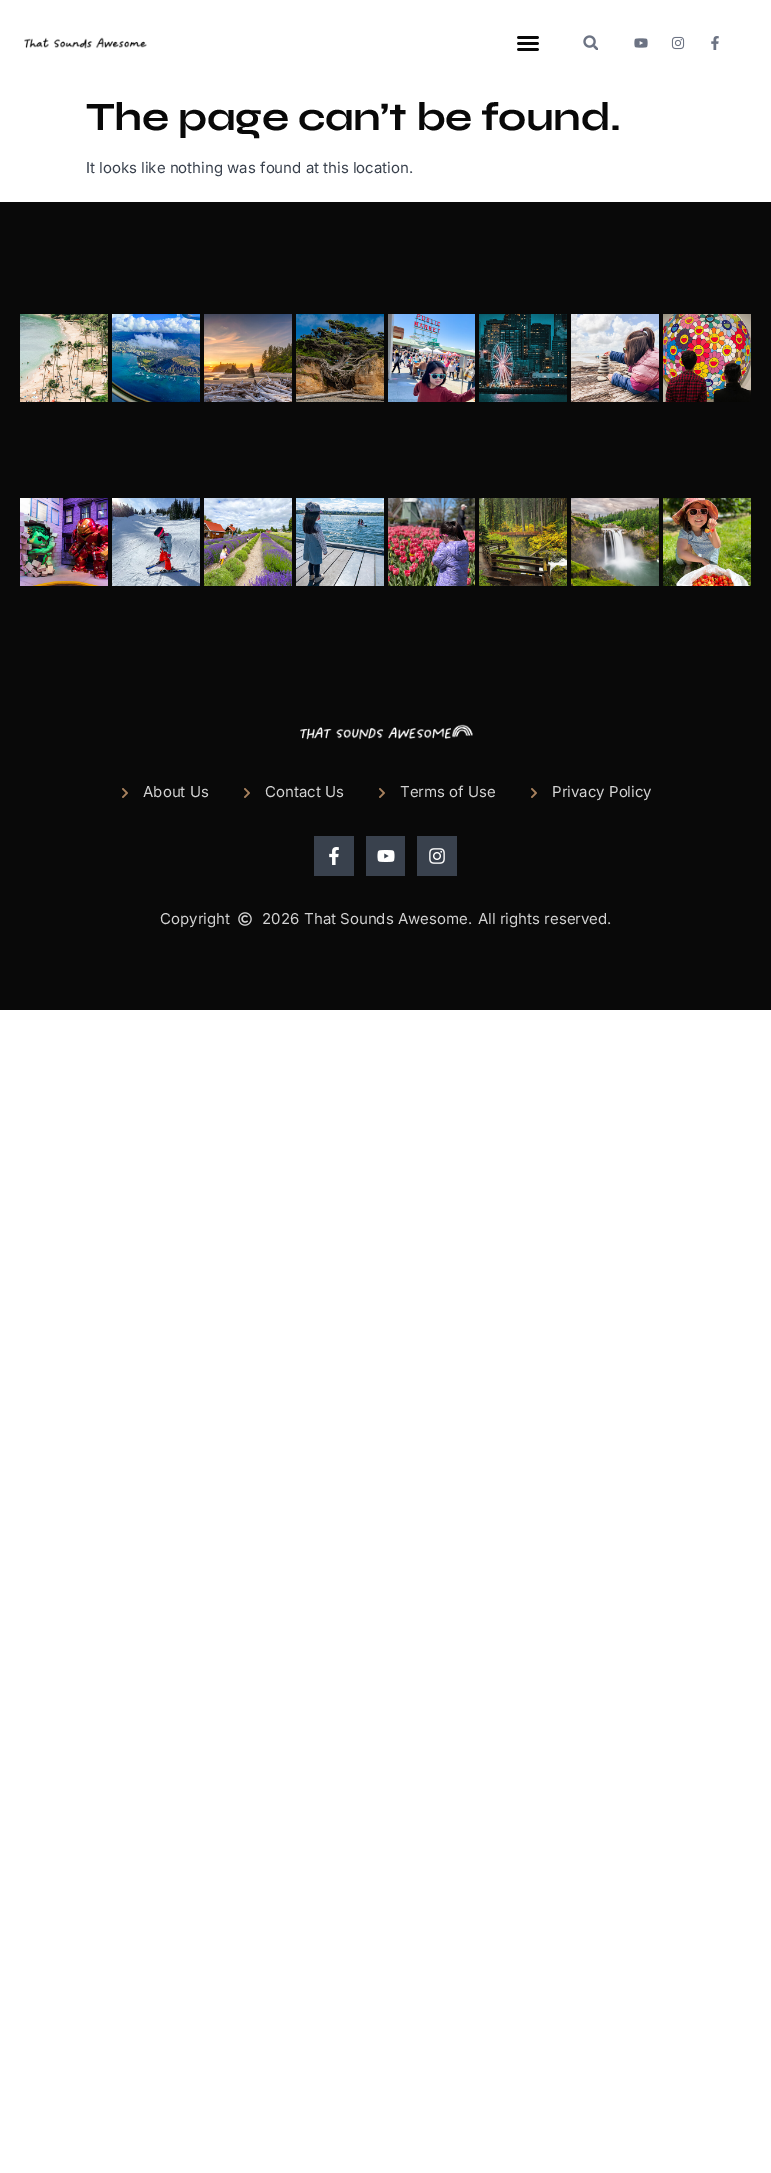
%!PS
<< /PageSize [771 2173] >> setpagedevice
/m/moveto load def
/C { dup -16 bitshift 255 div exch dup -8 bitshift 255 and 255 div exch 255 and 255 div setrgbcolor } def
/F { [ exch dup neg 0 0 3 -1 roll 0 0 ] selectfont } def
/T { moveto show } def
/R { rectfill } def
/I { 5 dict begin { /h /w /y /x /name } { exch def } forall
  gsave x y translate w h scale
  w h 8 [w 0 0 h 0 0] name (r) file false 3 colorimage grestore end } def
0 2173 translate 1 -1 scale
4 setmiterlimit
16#FFFFFF C
0 0 771 2173 R
(1.rgb) 24 37 123 12 I
(2.rgb) 517 36 22 15 I
(3.rgb) 583 35 15 15 I
(4.rgb) 634 38 14 10 I
(5.rgb) 671 36 14 14 I
(6.rgb) 711 36 8 14 I
/Syne-Bold 40 F
16#090909 C
86 130 m -.4 0 (The page can’t be found.) ashow
/Inter-Regular 15 F
16#39414D C
(It looks like nothing was found at this location.) 86 173 T
16#090909 C
0 202 771 808 R
(7.rgb) 20 314 88 88 I
(8.rgb) 112 314 88 88 I
(9.rgb) 204 314 88 88 I
(10.rgb) 296 314 88 88 I
(11.rgb) 388 314 87 88 I
(12.rgb) 479 314 88 88 I
(13.rgb) 571 314 88 88 I
(14.rgb) 663 314 88 88 I
(15.rgb) 20 498 88 88 I
(16.rgb) 112 498 88 88 I
(17.rgb) 204 498 88 88 I
(18.rgb) 296 498 88 88 I
(19.rgb) 388 498 87 88 I
(20.rgb) 479 498 88 88 I
(21.rgb) 571 498 88 88 I
(22.rgb) 663 498 88 88 I
(23.rgb) 300 724 173 16 I
(24.rgb) 122 788 6 10 I
16#D3D3D3 C
(About Us) 143 797 T
(24.rgb) 244 788 6 10 I
(Contact Us) 265 797 T
(24.rgb) 379 788 6 10 I
(Terms of Use) 400 797 T
(24.rgb) 531 788 6 10 I
(Privacy Policy) 552 797 T
16#39414D C
314 836 40 40 R
(25.rgb) 329 847 10 18 I
366 836 39 40 R
(26.rgb) 377 850 18 12 I
417 836 40 40 R
(27.rgb) 429 848 16 16 I
16#D3D3D3 C
(Copyright) 160 924 T
(28.rgb) 238 912 14 14 I
(2026) 262 924 T
(That Sounds Awesome.) 304 924 T
(All rights reserved.) 478 924 T
showpage
